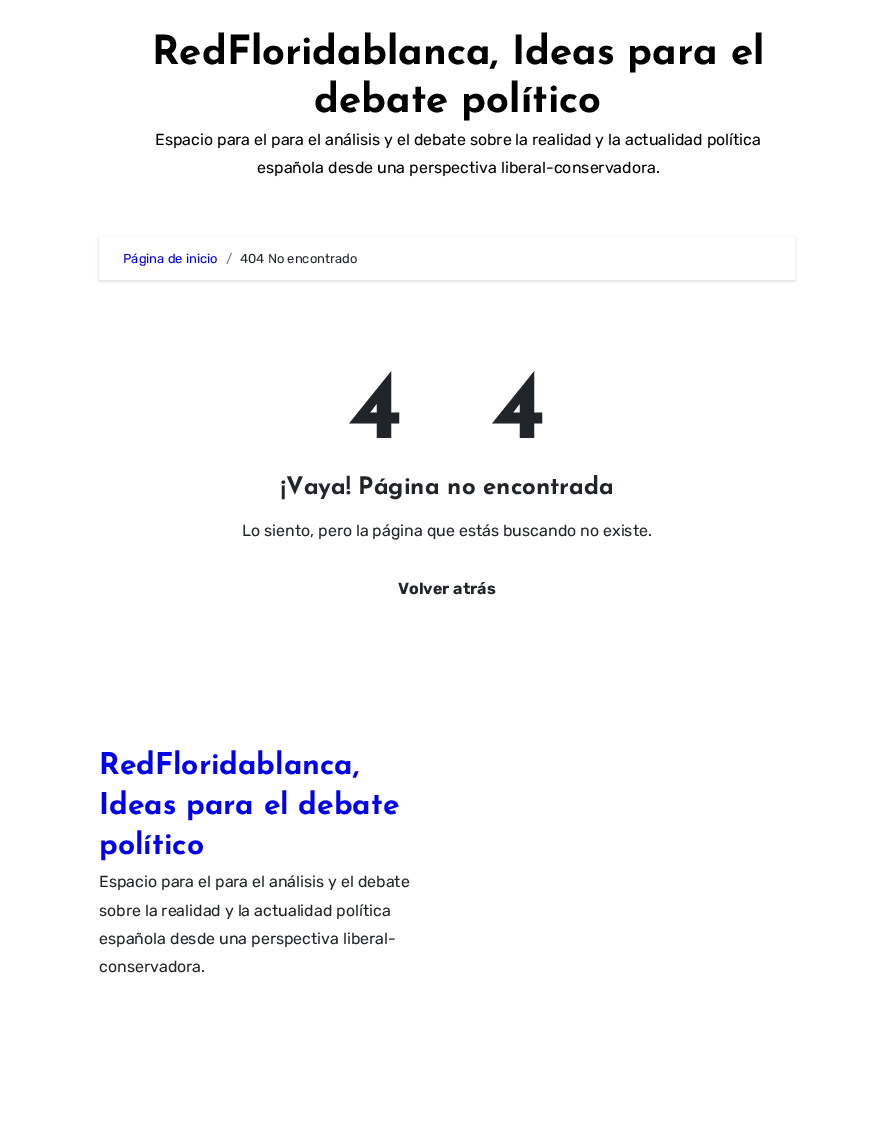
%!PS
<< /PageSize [894 1136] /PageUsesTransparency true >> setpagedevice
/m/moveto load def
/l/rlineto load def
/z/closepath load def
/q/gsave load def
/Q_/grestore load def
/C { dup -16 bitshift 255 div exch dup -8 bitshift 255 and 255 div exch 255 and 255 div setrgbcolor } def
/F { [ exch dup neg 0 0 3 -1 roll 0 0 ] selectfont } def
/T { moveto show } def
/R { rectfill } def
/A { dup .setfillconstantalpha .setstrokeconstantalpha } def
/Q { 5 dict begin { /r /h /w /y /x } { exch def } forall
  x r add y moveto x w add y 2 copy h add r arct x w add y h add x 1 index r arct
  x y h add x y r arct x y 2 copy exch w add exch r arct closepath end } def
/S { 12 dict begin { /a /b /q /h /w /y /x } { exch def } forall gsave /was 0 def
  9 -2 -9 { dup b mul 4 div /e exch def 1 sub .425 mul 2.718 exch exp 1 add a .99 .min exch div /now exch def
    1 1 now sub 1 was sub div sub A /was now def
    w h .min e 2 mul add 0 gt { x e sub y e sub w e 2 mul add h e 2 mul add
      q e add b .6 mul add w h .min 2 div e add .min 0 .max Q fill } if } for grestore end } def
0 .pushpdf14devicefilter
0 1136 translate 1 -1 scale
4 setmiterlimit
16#FFFFFF C
0 0 894 1136 R
/JosefinSans-Bold 40 F
16#000000 C
(RedFloridablanca, Ideas para el) 152 64 T
(debate político) 314 112 T
/Rubik-Light 16 F
(Espacio para el para el análisis y el debate sobre la realidad y la actualidad política) 155 145 T
(española desde una perspectiva liberal-conservadora.) 257 173 T
q
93 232 m 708 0 l 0 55 l -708 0 l z 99 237 m 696 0 l 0 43 l -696 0 l z eoclip newpath
99 238 696 43 0 1.5 .15 S
Q_
/Rubik-Light 13 F
16#0000EE C
(Página de inicio) 123 263 T
16#6C757D C
(/) 226 263 T
16#212529 C
(404 No encontrado) 240 263 T
/JosefinSans-Bold 100 F
(4) 348 438 T
(4) 491 438 T
/JosefinSans-Bold 24 F
(¡Vaya! Página no encontrada) 281 494 T
/Rubik-Light 16 F
(Lo siento, pero la página que estás buscando no existe.) 242 536 T
/Rubik-Bold 16 F
(Volver atrás) 398 594 T
/JosefinSans-Bold 30 F
16#0000EE C
(RedFloridablanca,) 99 774 T
(Ideas para el debate) 99 814 T
(político) 99 854 T
/Rubik-Light 16 F
16#212529 C
(Espacio para el para el análisis y el debate) 99 887 T
(sobre la realidad y la actualidad política) 99 916 T
(española desde una perspectiva liberal-) 99 944 T
(conservadora.) 99 972 T
.poppdf14devicefilter showpage
